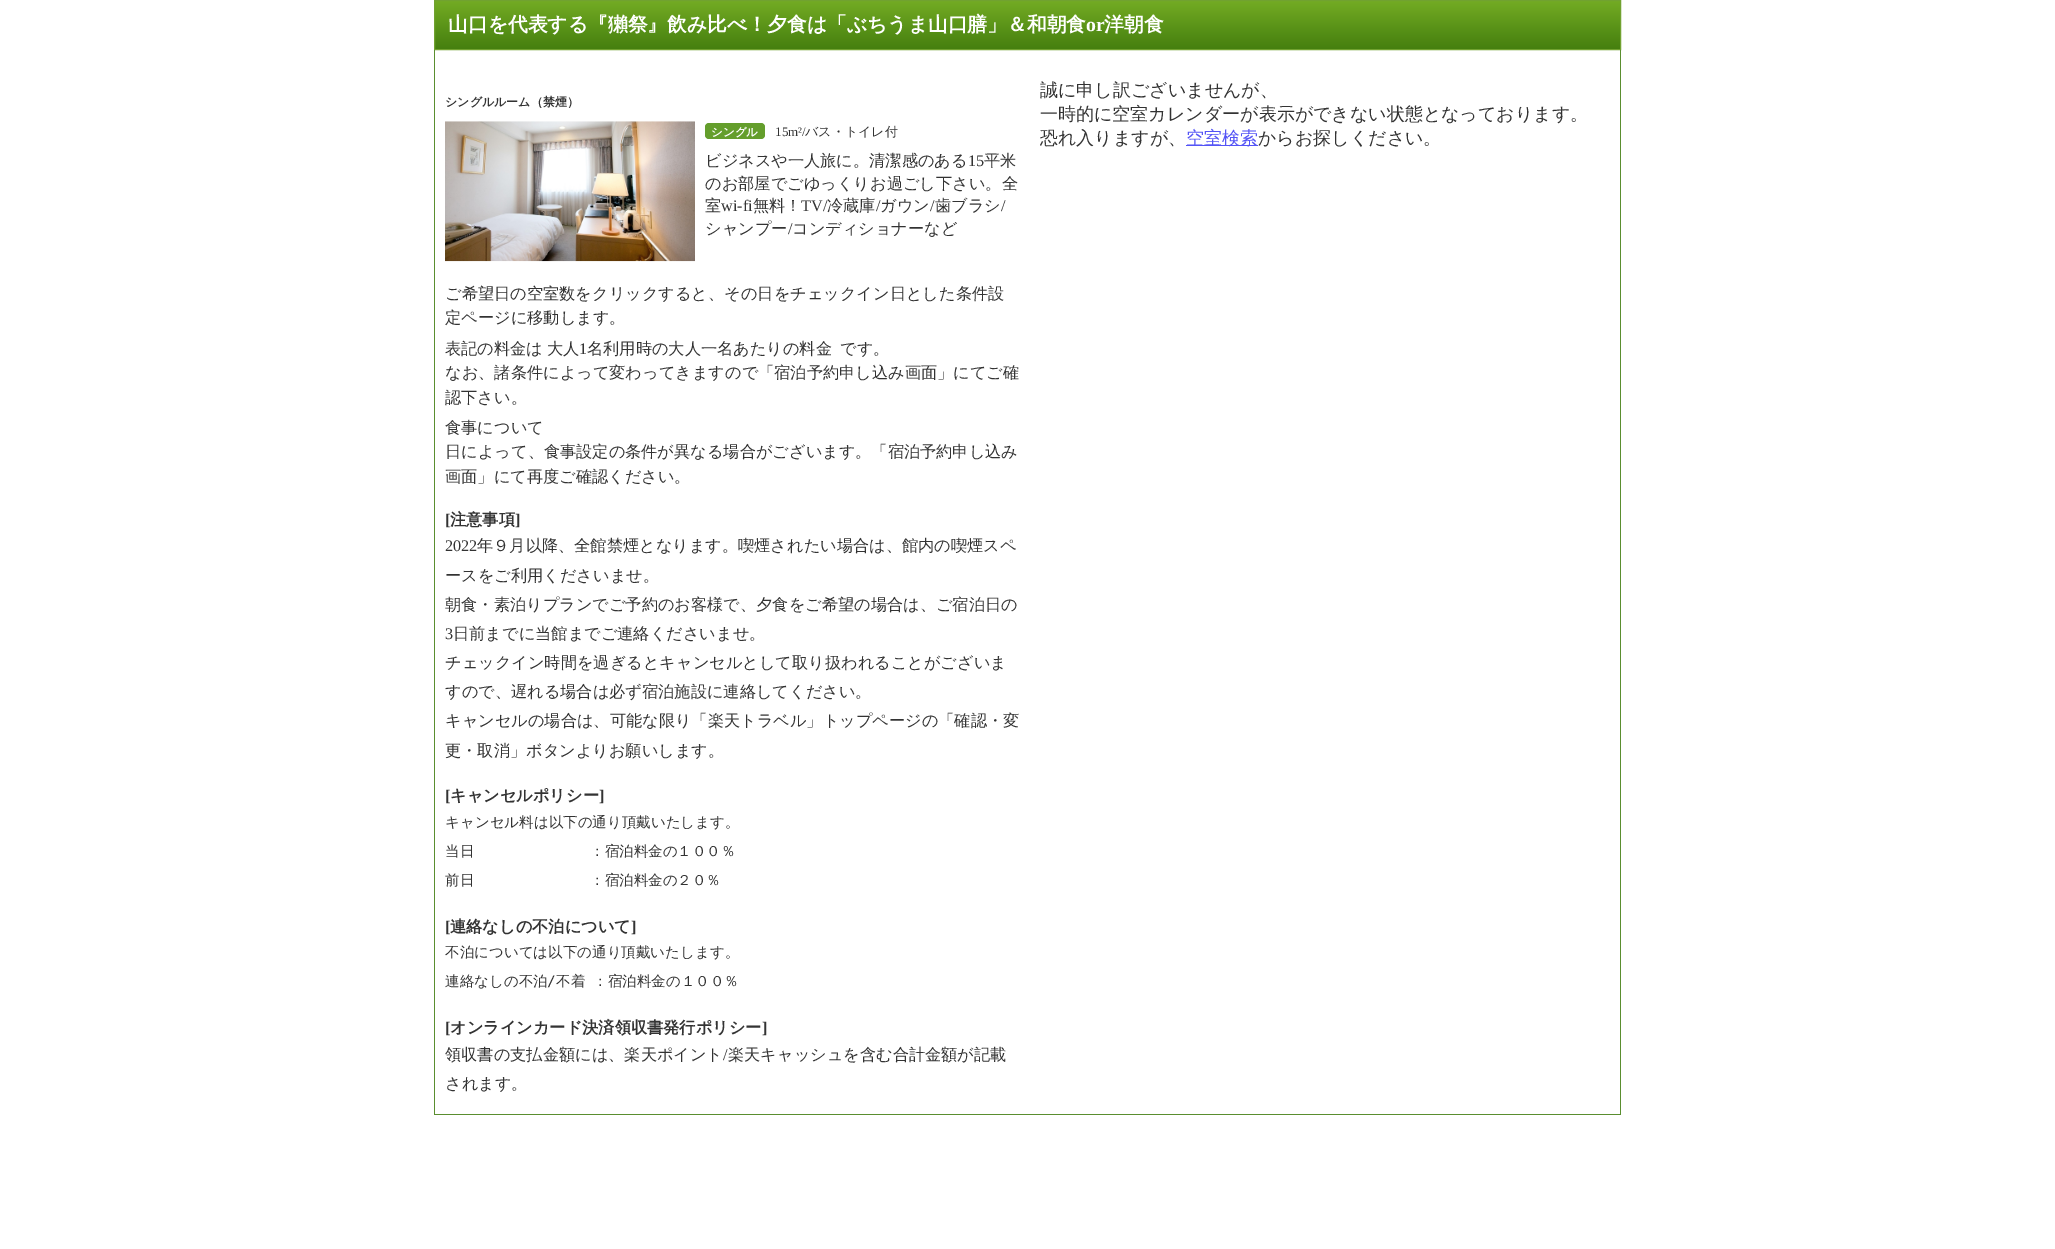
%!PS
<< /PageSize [2055 1249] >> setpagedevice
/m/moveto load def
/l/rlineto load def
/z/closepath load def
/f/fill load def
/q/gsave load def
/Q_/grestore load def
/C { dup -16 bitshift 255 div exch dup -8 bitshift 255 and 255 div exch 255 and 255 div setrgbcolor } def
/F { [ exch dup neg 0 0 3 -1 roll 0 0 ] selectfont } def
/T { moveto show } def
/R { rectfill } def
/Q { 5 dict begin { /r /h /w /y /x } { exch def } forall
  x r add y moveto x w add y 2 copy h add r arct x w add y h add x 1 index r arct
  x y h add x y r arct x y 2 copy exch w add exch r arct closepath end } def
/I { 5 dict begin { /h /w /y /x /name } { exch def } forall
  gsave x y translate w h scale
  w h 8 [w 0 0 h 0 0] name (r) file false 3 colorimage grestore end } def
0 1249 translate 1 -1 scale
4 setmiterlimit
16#FFFFFF C
0 0 2055 1249 R
q 435 1 m 1185 0 l 0 48 l -1185 0 l z clip newpath
<< /ShadingType 2 /ColorSpace /DeviceRGB /Coords [1028 1.2 1028 49] /Extend [true true] /Function << /FunctionType 2 /Domain [0 1] /C0 [.451 .671 .137] /C1 [.271 .498 .059] /N 1 >> >> shfill Q_
16#71A230 C
434.5 .5 1186 49 rectstroke
/WenQuanYiZenHei-Bold 19.8 F
16#FFFFFF C
(山口を代表する『獺祭』飲み比べ！夕食は「ぶちうま山口膳」＆和朝食) 448 31 T
/LiberationSerif-Bold 19.8 F
(or) 1086 31 T
/WenQuanYiZenHei-Bold 19.8 F
(洋朝食) 1104 31 T
16#5A8E2F C
1620 50 1 1065 R
434 1114 1187 1 R
434 50 1 1065 R
/WenQuanYiZenHei-Bold 12 F
16#333333 C
(シングルルーム（禁煙）) 445 106 T
(1.rgb) 445 121 250 141 I
16#649E2C C
705 123 60 16 4 Q f
/WenQuanYiZenHei-Bold 11.5 F
16#FFFFFF C
(シングル) 711 136 T
/LiberationSerif-Regular 13 F
16#333333 C
(15m²/) 775 136 T
/WenQuanYiZenHei-Medium 13 F
(バス・トイレ付) 805 136 T
/WenQuanYiZenHei-Medium 16.2 F
(ビジネスや一人旅に。清潔感のある) 705 166 T
/LiberationSerif-Regular 16.2 F
(15) 968 166 T
/WenQuanYiZenHei-Medium 16.2 F
(平米) 984 166 T
(のお部屋でごゆっくりお過ごし下さい。全) 705 189 T
(室) 705 211 T
/LiberationSerif-Regular 16.2 F
(wi-fi) 721 211 T
/WenQuanYiZenHei-Medium 16.2 F
(無料！) 753 211 T
/LiberationSerif-Regular 16.2 F
(TV/) 801 211 T
/WenQuanYiZenHei-Medium 16.2 F
(冷蔵庫) 827 211 T
/LiberationSerif-Regular 16.2 F
(/) 876 211 T
/WenQuanYiZenHei-Medium 16.2 F
(ガウン) 880 211 T
/LiberationSerif-Regular 16.2 F
(/) 930 211 T
/WenQuanYiZenHei-Medium 16.2 F
(歯ブラシ) 935 211 T
/LiberationSerif-Regular 16.2 F
(/) 1001 211 T
/WenQuanYiZenHei-Medium 16.2 F
(シャンプー) 705 234 T
/LiberationSerif-Regular 16.2 F
(/) 788 234 T
/WenQuanYiZenHei-Medium 16.2 F
(コンディショナーなど) 792 234 T
(ご希望日の空室数をクリックすると、その日をチェックイン日とした条件設) 445 299 T
(定ページに移動します。) 445 323 T
(表記の料金は) 445 354 T
(大人) 547 354 T
/LiberationSerif-Regular 16.2 F
(1) 579 354 T
/WenQuanYiZenHei-Medium 16.2 F
(名利用時の大人一名あたりの料金) 587 354 T
(です。) 840 354 T
(なお、諸条件によって変わってきますので「宿泊予約申し込み画面」にてご確) 445 378 T
(認下さい。) 445 403 T
(食事について) 445 433 T
(日によって、食事設定の条件が異なる場合がございます。「宿泊予約申し込み) 445 457 T
(画面」にて再度ご確認ください。) 445 482 T
/LiberationSerif-Bold 16.2 F
([) 445 525 T
/WenQuanYiZenHei-Bold 16.2 F
(注意事項) 450 525 T
/LiberationSerif-Bold 16.2 F
(]) 515 525 T
/LiberationSerif-Regular 16.2 F
(2022) 445 551 T
/WenQuanYiZenHei-Medium 16.2 F
(年９月以降、全館禁煙となります。喫煙されたい場合は、館内の喫煙スペ) 477 551 T
(ースをご利用くださいませ。) 445 581 T
(朝食・素泊りプランでご予約のお客様で、夕食をご希望の場合は、ご宿泊日の) 445 610 T
/LiberationSerif-Regular 16.2 F
(3) 445 639 T
/WenQuanYiZenHei-Medium 16.2 F
(日前までに当館までご連絡くださいませ。) 453 639 T
(チェックイン時間を過ぎるとキャンセルとして取り扱われることがございま) 445 668 T
(すので、遅れる場合は必ず宿泊施設に連絡してください。) 445 697 T
(キャンセルの場合は、可能な限り「楽天トラベル」トップページの「確認・変) 445 726 T
(更・取消」ボタンよりお願いします。) 445 756 T
/LiberationSerif-Bold 16.2 F
([) 445 801 T
/WenQuanYiZenHei-Bold 16.2 F
(キャンセルポリシー) 450 801 T
/LiberationSerif-Bold 16.2 F
(]) 599 801 T
/WenQuanYiZenHei-Medium 14.5 F
(キャンセル料は以下の通り頂戴いたします。) 445 827 T
(当日　　　　　　　　：宿泊料金の１００％) 445 856 T
(前日　　　　　　　　：宿泊料金の２０％) 445 885 T
/LiberationSerif-Bold 16.2 F
([) 445 932 T
/WenQuanYiZenHei-Bold 16.2 F
(連絡なしの不泊について) 450 932 T
/LiberationSerif-Bold 16.2 F
(]) 631 932 T
/WenQuanYiZenHei-Medium 14.5 F
(不泊については以下の通り頂戴いたします。) 445 957 T
(連絡なしの不泊) 445 986 T
/DejaVuSansMono-Regular 14.5 F
(/) 547 986 T
/WenQuanYiZenHei-Medium 14.5 F
556 986 m 4 0 32 (不着 ：宿泊料金の１００％) widthshow
/LiberationSerif-Bold 16.2 F
([) 445 1033 T
/WenQuanYiZenHei-Bold 16.2 F
(オンラインカード決済領収書発行ポリシー) 450 1033 T
/LiberationSerif-Bold 16.2 F
(]) 762 1033 T
/WenQuanYiZenHei-Medium 16.2 F
(領収書の支払金額には、楽天ポイント) 445 1060 T
/LiberationSerif-Regular 16.2 F
(/) 723 1060 T
/WenQuanYiZenHei-Medium 16.2 F
(楽天キャッシュを含む合計金額が記載) 728 1060 T
(されます。) 445 1089 T
/WenQuanYiZenHei-Medium 18 F
(誠に申し訳ございませんが、) 1040 96 T
(一時的に空室カレンダーが表示ができない状態となっております。) 1040 120 T
(恐れ入りますが、) 1040 144 T
16#5454F6 C
1186 145 72 1 R
(空室検索) 1186 144 T
16#333333 C
(からお探しください。) 1258 144 T
showpage
